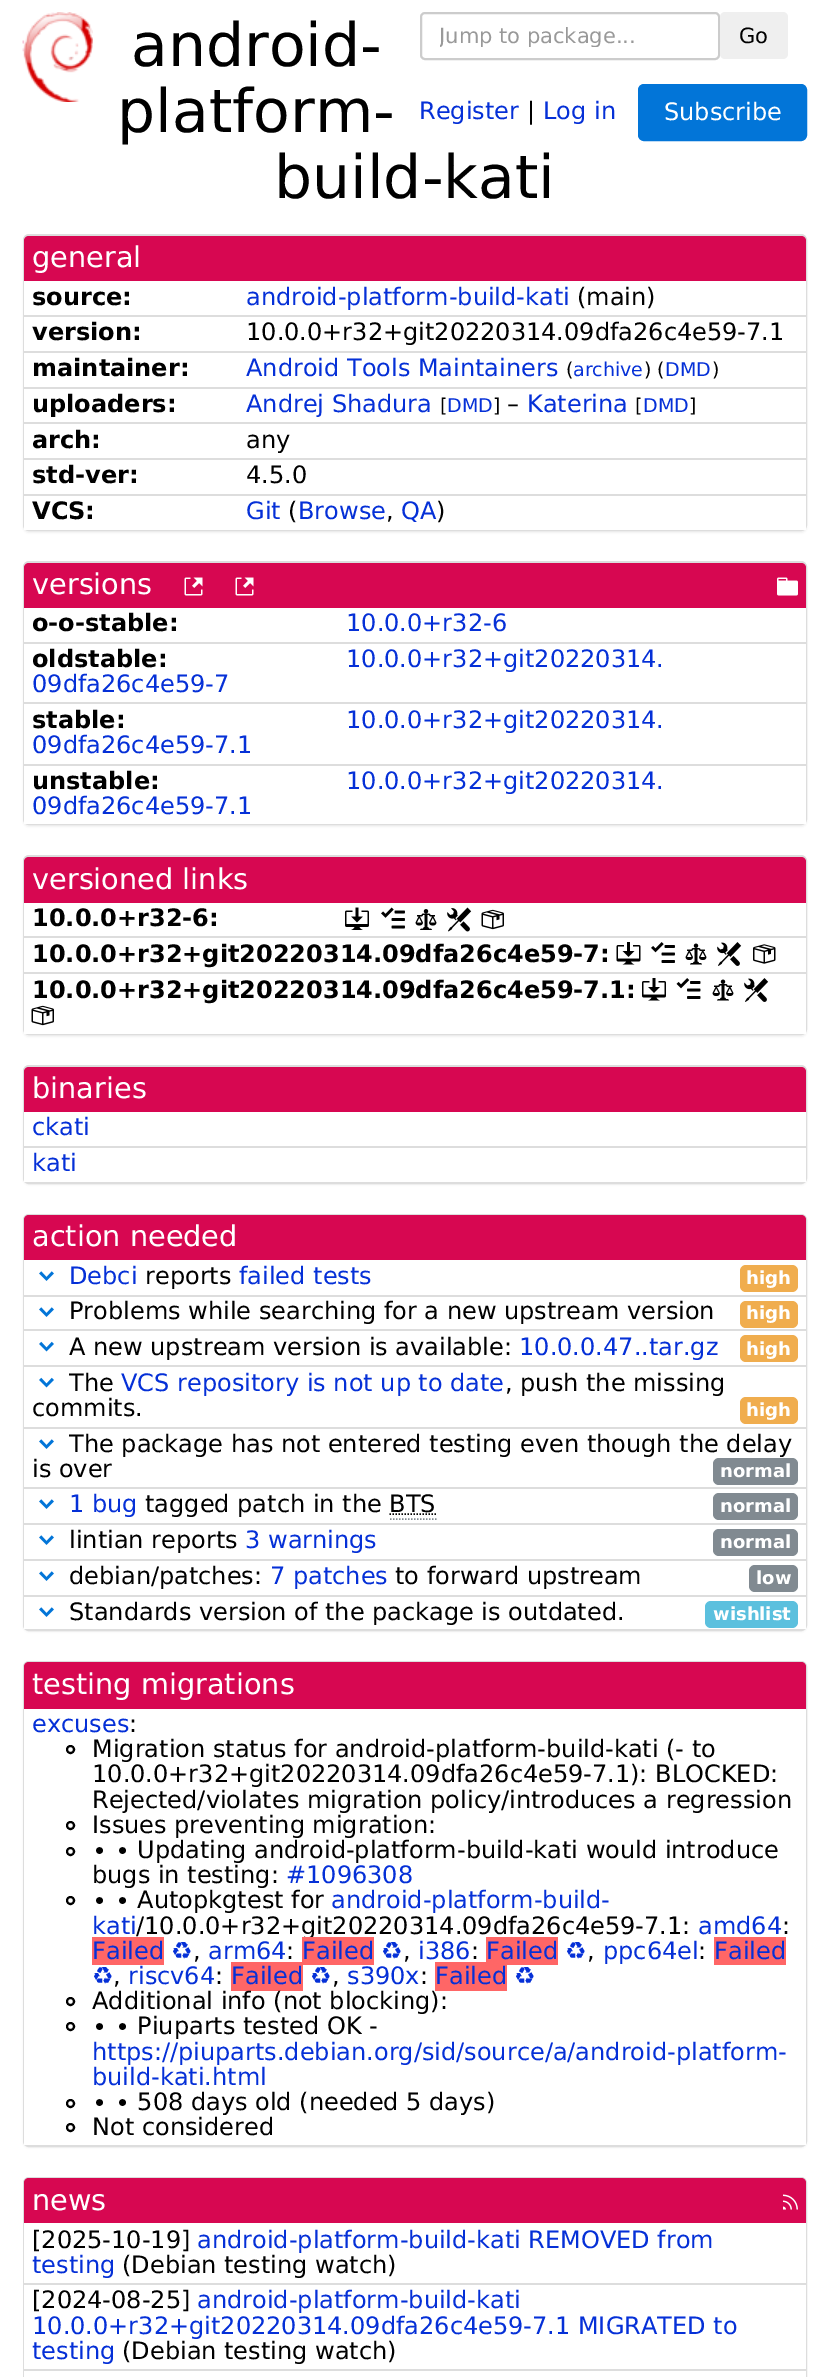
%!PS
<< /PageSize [829 2377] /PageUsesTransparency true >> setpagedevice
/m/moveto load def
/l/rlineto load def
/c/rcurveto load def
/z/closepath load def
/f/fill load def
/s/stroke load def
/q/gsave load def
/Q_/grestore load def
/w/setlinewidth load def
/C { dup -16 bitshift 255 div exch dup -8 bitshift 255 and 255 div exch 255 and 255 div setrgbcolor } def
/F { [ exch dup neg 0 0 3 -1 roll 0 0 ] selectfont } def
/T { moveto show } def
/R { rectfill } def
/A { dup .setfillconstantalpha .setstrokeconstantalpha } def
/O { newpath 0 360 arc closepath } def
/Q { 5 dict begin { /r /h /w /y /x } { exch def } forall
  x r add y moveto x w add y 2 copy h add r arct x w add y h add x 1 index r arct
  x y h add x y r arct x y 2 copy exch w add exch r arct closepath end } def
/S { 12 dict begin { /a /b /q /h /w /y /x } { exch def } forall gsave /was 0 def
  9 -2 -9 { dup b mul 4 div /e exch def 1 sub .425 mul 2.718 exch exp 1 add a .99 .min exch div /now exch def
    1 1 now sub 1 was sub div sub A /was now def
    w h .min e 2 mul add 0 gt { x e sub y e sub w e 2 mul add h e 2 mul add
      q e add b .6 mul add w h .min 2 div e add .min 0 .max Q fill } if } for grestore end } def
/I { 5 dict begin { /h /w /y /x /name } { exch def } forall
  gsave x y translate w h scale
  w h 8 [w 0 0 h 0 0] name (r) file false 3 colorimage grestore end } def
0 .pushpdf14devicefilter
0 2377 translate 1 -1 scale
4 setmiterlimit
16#FFFFFF C
0 0 829 2377 R
(1.rgb) 22 12 71 90 I
/DejaVuSans-Regular 60 F
16#000000 C
(android-) 131 66 T
(platform-) 117 132 T
(build-kati) 274 198 T
16#CCCCCC C
2 w
421 13 298 46 4 Q s
q
440 23 255 24 rectclip
/DejaVuSans-Regular 21 F
16#999999 C
(Jump to package...) 439 43 T
Q_
16#EFEFEF C
720 12 68 47 5 Q f
/DejaVuSans-Regular 21 F
16#000000 C
(Go) 739 43 T
/DejaVuSans-Regular 24 F
16#0530D7 C
(Register) 419 119 T
16#000000 C
(|) 527 119 T
16#0530D7 C
(Log in) 543 119 T
16#0275D8 C
639 85 167 55 5 Q q f Q_
s
16#FFFFFF C
(Subscribe) 664 120 T
16#000000 C
23 236 784 297 6 1 .05 S
16#DDDDDD C
24 235 782 295 5 Q s
16#D70751 C
29 236 m 772 0 l 3 0 5 2 5 5 c 0 41 l -782 0 l 0 -41 l 0 -3 2 -5 5 -5 c z f
/DejaVuSans-Regular 28.75 F
16#FFFFFF C
(general) 32 267 T
24 281 782 249 R
16#DDDDDD C
24 315 782 2 R
/DejaVuSans-Bold 24 F
16#000000 C
(source:) 32 305 T
/DejaVuSans-Regular 24 F
16#0530D7 C
(android-platform-build-kati) 246 305 T
16#000000 C
(\(main\)) 577 305 T
16#DDDDDD C
24 351 782 2 R
/DejaVuSans-Bold 24 F
16#000000 C
(version:) 32 340 T
/DejaVuSans-Regular 24 F
(10.0.0+r32+git20220314.09dfa26c4e59-7.1) 246 340 T
16#DDDDDD C
24 387 782 2 R
/DejaVuSans-Bold 24 F
16#000000 C
(maintainer:) 32 376 T
/DejaVuSans-Regular 24 F
16#0530D7 C
(Android Tools Maintainers) 246 376 T
/DejaVuSans-Regular 19 F
16#000000 C
(\() 566 376 T
16#0530D7 C
(archive) 573 376 T
16#000000 C
(\) \() 644 376 T
16#0530D7 C
(DMD) 665 376 T
16#000000 C
(\)) 712 376 T
/DejaVuSans-Bold 24 F
(uploaders:) 32 412 T
/DejaVuSans-Regular 24 F
16#0530D7 C
(Andrej Shadura) 246 412 T
/DejaVuSans-Regular 19 F
16#000000 C
([) 440 412 T
16#0530D7 C
(DMD) 447 412 T
16#000000 C
(]) 493 412 T
/DejaVuSans-Regular 24 F
(–) 507 412 T
16#0530D7 C
(Katerina) 527 412 T
/DejaVuSans-Regular 19 F
16#000000 C
([) 635 412 T
16#0530D7 C
(DMD) 643 412 T
16#000000 C
(]) 689 412 T
16#DDDDDD C
24 422 782 2 R
/DejaVuSans-Bold 24 F
16#000000 C
(arch:) 32 448 T
/DejaVuSans-Regular 24 F
(any) 246 448 T
16#DDDDDD C
24 458 782 2 R
/DejaVuSans-Bold 24 F
16#000000 C
(std-ver:) 32 483 T
/DejaVuSans-Regular 24 F
(4.5.0) 246 483 T
16#DDDDDD C
24 494 782 2 R
/DejaVuSans-Bold 24 F
16#000000 C
(VCS:) 32 519 T
/DejaVuSans-Regular 24 F
16#0530D7 C
(Git) 246 519 T
16#000000 C
(\() 288 519 T
16#0530D7 C
(Browse) 298 519 T
16#000000 C
(,) 386 519 T
16#0530D7 C
(QA) 401 519 T
16#000000 C
(\)) 436 519 T
23 563 784 264 6 1 .05 S
16#DDDDDD C
24 562 782 262 5 Q s
16#D70751 C
29 563 m 772 0 l 3 0 5 2 5 5 c 0 41 l -782 0 l 0 -41 l 0 -3 2 -5 5 -5 c z f
/DejaVuSans-Regular 28.75 F
16#FFFFFF C
(versions) 32 594 T
(2.rgb) 184 577 19 19 I
(2.rgb) 235 577 19 19 I
(3.rgb) 777 577 21 19 I
24 608 782 216 R
16#DDDDDD C
24 642 782 2 R
/DejaVuSans-Bold 24 F
16#000000 C
(o-o-stable:) 32 631 T
/DejaVuSans-Regular 24 F
16#0530D7 C
(10.0.0+r32-6) 346 631 T
16#DDDDDD C
24 702 782 2 R
/DejaVuSans-Bold 24 F
16#000000 C
(oldstable:) 32 667 T
/DejaVuSans-Regular 24 F
16#0530D7 C
(10.0.0+r32+git20220314.) 346 667 T
(09dfa26c4e59-7) 32 692 T
/DejaVuSans-Bold 24 F
16#000000 C
(stable:) 32 728 T
/DejaVuSans-Regular 24 F
16#0530D7 C
(10.0.0+r32+git20220314.) 346 728 T
(09dfa26c4e59-7.1) 32 753 T
16#DDDDDD C
24 764 782 2 R
/DejaVuSans-Bold 24 F
16#000000 C
(unstable:) 32 789 T
/DejaVuSans-Regular 24 F
16#0530D7 C
(10.0.0+r32+git20220314.) 346 789 T
(09dfa26c4e59-7.1) 32 814 T
16#000000 C
23 857 784 180 6 1 .05 S
16#DDDDDD C
24 856 782 178 5 Q s
16#D70751 C
29 857 m 772 0 l 3 0 5 2 5 5 c 0 43 l -782 0 l 0 -43 l 0 -3 2 -5 5 -5 c z f
/DejaVuSans-Regular 28.75 F
16#FFFFFF C
(versioned links) 32 889 T
24 903 782 131 R
16#DDDDDD C
24 936 782 2 R
/DejaVuSans-Bold 24 F
16#000000 C
(10.0.0+r32-6:) 32 926 T
(4.rgb) 345 907 24 23 I
(5.rgb) 381 907 24 22 I
(6.rgb) 415 909 22 21 I
(7.rgb) 447 907 25 25 I
(8.rgb) 481 909 23 21 I
(10.0.0+r32+git20220314.09dfa26c4e59-7:) 32 962 T
(9.rgb) 616 942 25 23 I
(10.rgb) 651 942 24 21 I
(11.rgb) 685 943 22 22 I
(12.rgb) 717 942 25 24 I
(13.rgb) 753 944 23 20 I
16#DDDDDD C
24 972 782 2 R
16#000000 C
(10.0.0+r32+git20220314.09dfa26c4e59-7.1:) 32 998 T
(14.rgb) 642 978 24 23 I
(15.rgb) 676 978 25 21 I
(11.rgb) 712 979 22 22 I
(12.rgb) 744 978 25 24 I
(8.rgb) 31 1005 23 21 I
23 1067 784 118 6 1 .05 S
16#DDDDDD C
24 1066 782 117 5 Q s
16#D70751 C
29 1067 m 772 0 l 3 0 5 2 5 5 c 0 41 l -782 0 l 0 -41 l 0 -3 2 -5 5 -5 c z f
/DejaVuSans-Regular 28.75 F
16#FFFFFF C
(binaries) 32 1098 T
24 1112 782 70 R
/DejaVuSans-Regular 24 F
16#0530D7 C
(ckati) 32 1135 T
16#DDDDDD C
24 1146 782 2 R
16#0530D7 C
(kati) 32 1171 T
16#000000 C
23 1215 784 417 6 1 .05 S
16#DDDDDD C
24 1215 782 415 5 Q s
16#D70751 C
29 1215 m 772 0 l 3 0 5 2 5 5 c 0 42 l -782 0 l 0 -42 l 0 -3 2 -5 5 -5 c z f
/DejaVuSans-Regular 28.75 F
16#FFFFFF C
(action needed) 32 1246 T
24 1260 782 369 R
(16.rgb) 39 1271 15 10 I
/DejaVuSans-Regular 24 F
16#0530D7 C
(Debci) 69 1284 T
16#000000 C
(reports) 145 1284 T
16#0530D7 C
(failed tests) 239 1284 T
16#F0AD4E C
740 1265 58 27 6 Q f
/DejaVuSans-Bold 18 F
16#FFFFFF C
(high) 746 1284 T
16#DDDDDD C
24 1295 782 2 R
24 1329 782 2 R
(16.rgb) 39 1307 15 10 I
/DejaVuSans-Regular 24 F
16#000000 C
(Problems while searching for a new upstream version) 69 1319 T
16#F0AD4E C
740 1301 58 27 6 Q f
/DejaVuSans-Bold 18 F
16#FFFFFF C
(high) 746 1319 T
16#DDDDDD C
24 1365 782 2 R
(17.rgb) 39 1341 15 11 I
/DejaVuSans-Regular 24 F
16#000000 C
(A new upstream version is available:) 69 1355 T
16#0530D7 C
(10.0.0.47..tar.gz) 519 1355 T
16#F0AD4E C
740 1335 58 27 6 Q f
/DejaVuSans-Bold 18 F
16#FFFFFF C
(high) 746 1355 T
(17.rgb) 39 1377 15 11 I
/DejaVuSans-Regular 24 F
16#000000 C
(The) 69 1391 T
16#0530D7 C
(VCS repository is not up to date) 121 1391 T
16#000000 C
(, push the missing) 505 1391 T
(commits.) 32 1416 T
16#F0AD4E C
740 1397 58 27 6 Q f
/DejaVuSans-Bold 18 F
16#FFFFFF C
(high) 746 1416 T
16#DDDDDD C
24 1427 782 2 R
(16.rgb) 39 1439 15 10 I
/DejaVuSans-Regular 24 F
16#000000 C
(The package has not entered testing even though the delay) 69 1452 T
(is over) 32 1477 T
16#818A91 C
713 1458 85 27 6 Q f
/DejaVuSans-Bold 18 F
16#FFFFFF C
(normal) 720 1477 T
16#DDDDDD C
24 1487 782 2 R
(16.rgb) 39 1499 15 10 I
/DejaVuSans-Regular 24 F
16#0530D7 C
(1 bug) 69 1512 T
16#000000 C
(tagged patch in the BTS) 145 1512 T
16#818A91 C
713 1493 85 27 6 Q f
/DejaVuSans-Bold 18 F
16#FFFFFF C
(normal) 720 1512 T
16#000000 C
1.5 w
[1.5 1.5] 0 setdash
389.5 1514 m 46.5 0 l s
16#818A91 C
390 1519 m 46.5 0 l s
16#DDDDDD C
24 1523 782 2 R
(16.rgb) 39 1535 15 10 I
/DejaVuSans-Regular 24 F
16#000000 C
(lintian reports) 69 1548 T
16#0530D7 C
(3 warnings) 245 1548 T
16#818A91 C
713 1529 85 27 6 Q f
/DejaVuSans-Bold 18 F
16#FFFFFF C
(normal) 720 1548 T
16#DDDDDD C
24 1559 782 2 R
(16.rgb) 39 1571 15 10 I
/DejaVuSans-Regular 24 F
16#000000 C
(debian/patches:) 69 1584 T
16#0530D7 C
(7 patches) 270 1584 T
16#000000 C
(to forward upstream) 395 1584 T
16#818A91 C
749 1565 49 27 6 Q f
/DejaVuSans-Bold 18 F
16#FFFFFF C
(low) 756 1584 T
16#DDDDDD C
24 1595 782 2 R
(16.rgb) 39 1607 15 10 I
/DejaVuSans-Regular 24 F
16#000000 C
(Standards version of the package is outdated.) 69 1620 T
16#5BC0DE C
705 1601 93 27 6 Q f
/DejaVuSans-Bold 18 F
16#FFFFFF C
(wishlist) 713 1620 T
16#000000 C
23 1662 784 486 6 1 .05 S
16#DDDDDD C
2 w
[] 0 setdash
24 1662 782 484 5 Q s
16#D70751 C
29 1662 m 772 0 l 3 0 5 2 5 5 c 0 43 l -782 0 l 0 -43 l 0 -3 2 -5 5 -5 c z f
/DejaVuSans-Regular 28.75 F
16#FFFFFF C
(testing migrations) 32 1694 T
24 1709 782 436 R
/DejaVuSans-Regular 24 F
16#0530D7 C
(excuses) 32 1732 T
16#000000 C
(:) 129 1732 T
70.5 1749.5 3.5 O s
(Migration status for android-platform-build-kati \(- to) 92 1757 T
(10.0.0+r32+git20220314.09dfa26c4e59-7.1\): BLOCKED:) 92 1782 T
(Rejected/violates migration policy/introduces a regression) 92 1808 T
70.5 1825.5 3.5 O s
(Issues preventing migration:) 92 1833 T
70.5 1851.5 3.5 O s
(∙ ∙ Updating android-platform-build-kati would introduce) 92 1858 T
(bugs in testing:) 92 1883 T
16#0530D7 C
(#1096308) 286 1883 T
16#000000 C
70.5 1900.5 3.5 O s
(∙ ∙ Autopkgtest for) 92 1908 T
16#0530D7 C
(android-platform-build-) 331 1908 T
(kati) 92 1934 T
16#000000 C
(/10.0.0+r32+git20220314.09dfa26c4e59-7.1:) 136 1934 T
16#0530D7 C
(amd64) 698 1934 T
16#000000 C
(:) 782 1934 T
16#FF6666 C
92 1937 72 28 R
16#0530D7 C
(Failed ♻) 92 1959 T
16#000000 C
(,) 193 1959 T
16#0530D7 C
(arm64) 208 1959 T
16#000000 C
(:) 286 1959 T
16#FF6666 C
302 1937 72 28 R
16#0530D7 C
(Failed ♻) 302 1959 T
16#000000 C
(,) 403 1959 T
16#0530D7 C
(i386) 418 1959 T
16#000000 C
(:) 471 1959 T
16#FF6666 C
486 1937 72 28 R
16#0530D7 C
(Failed ♻) 486 1959 T
16#000000 C
(,) 587 1959 T
16#0530D7 C
(ppc64el) 603 1959 T
16#000000 C
(:) 698 1959 T
16#FF6666 C
714 1937 72 28 R
16#0530D7 C
(Failed) 714 1959 T
(♻) 92 1984 T
16#000000 C
(,) 113 1984 T
16#0530D7 C
(riscv64) 128 1984 T
16#000000 C
(:) 215 1984 T
16#FF6666 C
231 1962 72 29 R
16#0530D7 C
(Failed ♻) 231 1984 T
16#000000 C
(,) 332 1984 T
16#0530D7 C
(s390x) 347 1984 T
16#000000 C
(:) 420 1984 T
16#FF6666 C
435 1962 72 29 R
16#0530D7 C
(Failed ♻) 435 1984 T
16#000000 C
70.5 2001.5 3.5 O s
(Additional info \(not blocking\):) 92 2009 T
70.5 2026.5 3.5 O s
(∙ ∙ Piuparts tested OK -) 92 2034 T
16#0530D7 C
(https://piuparts.debian.org/sid/source/a/android-platform-) 92 2060 T
(build-kati.html) 92 2085 T
16#000000 C
70.5 2103.5 3.5 O s
(∙ ∙ 508 days old \(needed 5 days\)) 92 2110 T
70.5 2127.5 3.5 O s
(Not considered) 92 2135 T
16#DDDDDD C
24 2178 782 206 5 Q s
16#D70751 C
29 2178 m 772 0 l 3 0 5 2 5 5 c 0 42 l -782 0 l 0 -42 l 0 -3 2 -5 5 -5 c z f
/DejaVuSans-Regular 28.75 F
16#FFFFFF C
(news) 32 2210 T
(18.rgb) 783 2194 15 16 I
24 2223 782 146 R
16#DDDDDD C
24 2283 782 2 R
/DejaVuSans-Regular 24 F
16#000000 C
([2025-10-19]) 32 2248 T
16#0530D7 C
(android-platform-build-kati REMOVED from) 197 2248 T
(testing) 32 2273 T
16#000000 C
(\(Debian testing watch\)) 122 2273 T
([2024-08-25]) 32 2308 T
16#0530D7 C
(android-platform-build-kati) 197 2308 T
(10.0.0+r32+git20220314.09dfa26c4e59-7.1 MIGRATED to) 32 2334 T
(testing) 32 2359 T
16#000000 C
(\(Debian testing watch\)) 122 2359 T
16#FFFFFF C
24 2371 782 6 R
16#DDDDDD C
24 2369 782 2 R
.poppdf14devicefilter showpage
